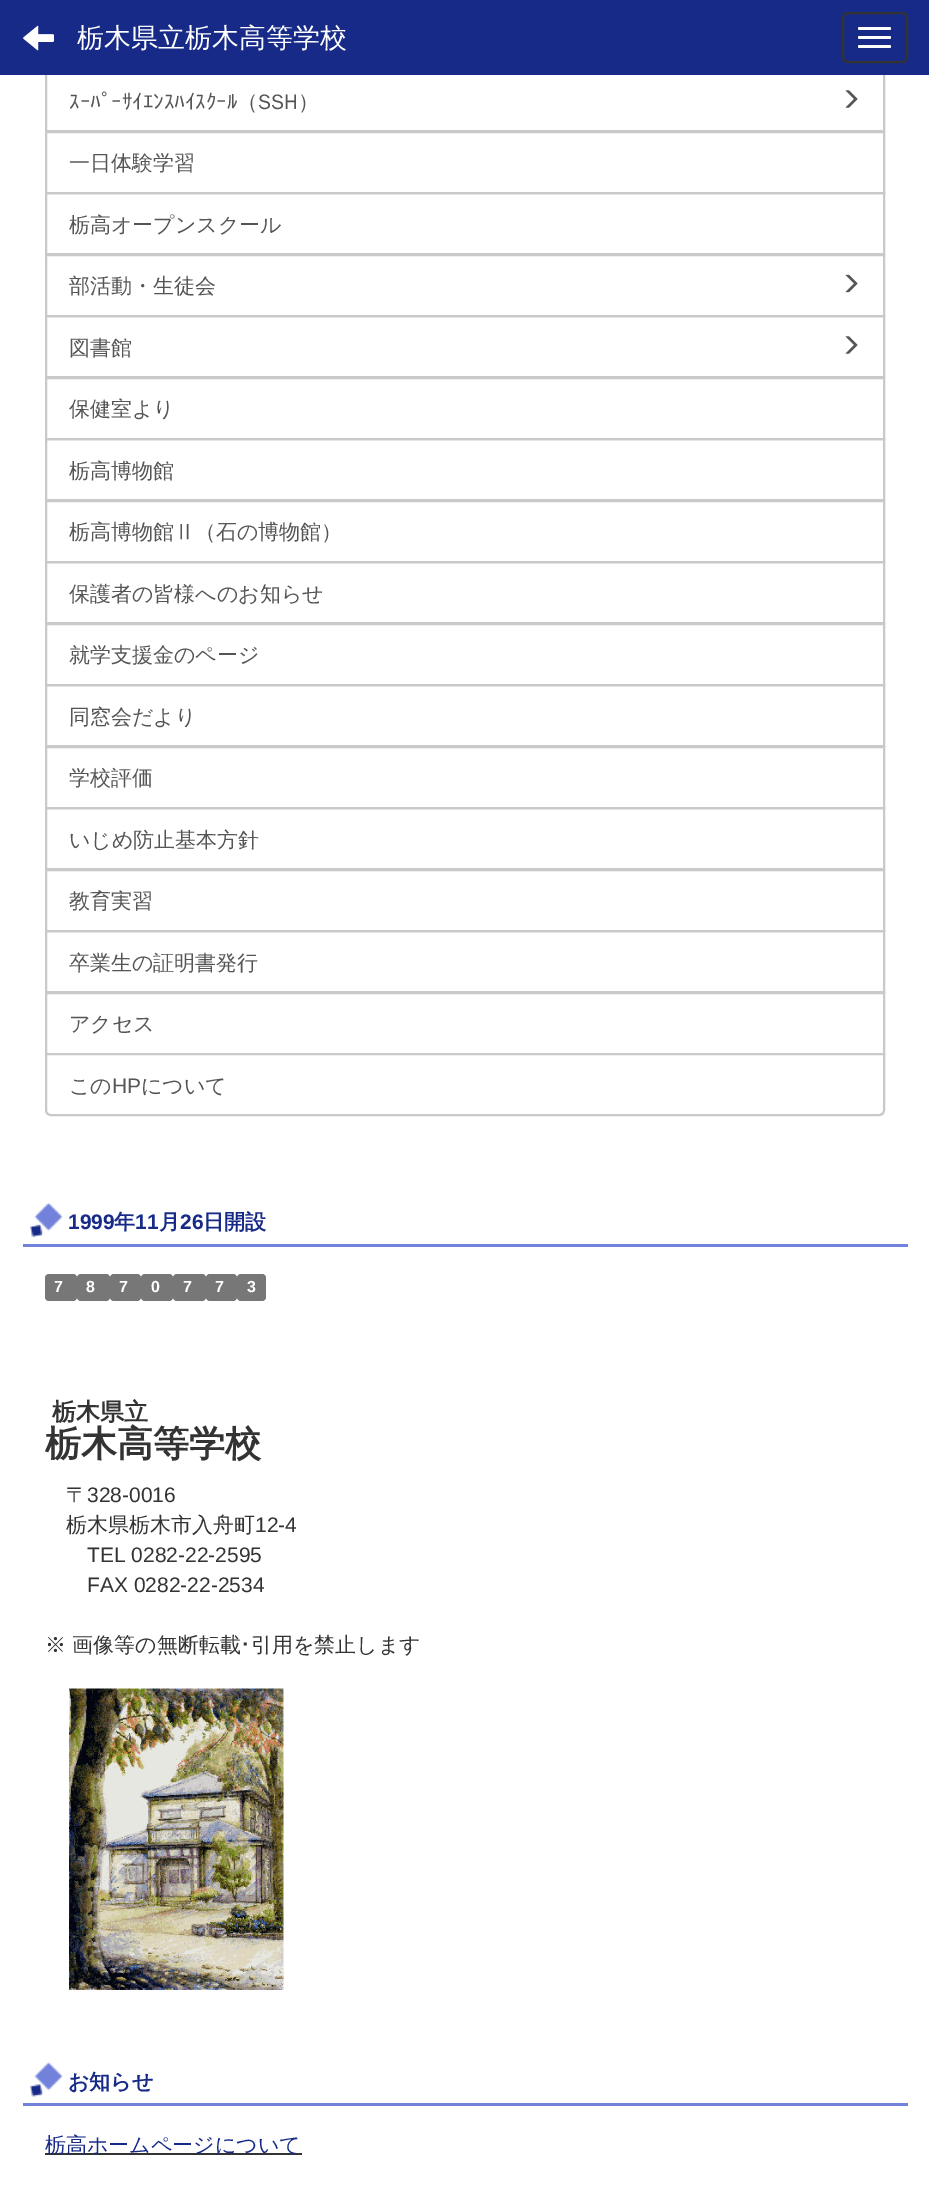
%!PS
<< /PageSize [929 2207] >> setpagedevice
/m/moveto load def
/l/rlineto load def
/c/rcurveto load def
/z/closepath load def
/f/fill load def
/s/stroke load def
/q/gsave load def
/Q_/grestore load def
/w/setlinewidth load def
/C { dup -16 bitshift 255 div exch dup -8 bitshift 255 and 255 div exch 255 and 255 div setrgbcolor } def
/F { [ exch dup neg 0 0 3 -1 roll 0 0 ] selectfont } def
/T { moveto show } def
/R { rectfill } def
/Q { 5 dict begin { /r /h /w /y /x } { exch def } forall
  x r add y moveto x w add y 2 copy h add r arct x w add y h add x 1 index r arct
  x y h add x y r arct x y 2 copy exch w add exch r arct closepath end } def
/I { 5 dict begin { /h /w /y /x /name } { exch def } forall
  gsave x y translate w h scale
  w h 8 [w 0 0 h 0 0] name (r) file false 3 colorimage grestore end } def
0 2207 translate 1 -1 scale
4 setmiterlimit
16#FFFFFF C
0 0 929 2207 R
16#C9C9C9 C
2 w
46 70 838 61 rectstroke
16#172A88 C
0 0 929 75 R
(1.rgb) 23 25 31 26 I
/WenQuanYiZenHei-Medium 27 F
16#FFFFFF C
(栃木県立栃木高等学校) 77 47 T
16#333333 C
843 13 64 49 5 Q s
16#FFFFFF C
858 27 33 3 1.5 Q f
858 36 33 3 1.5 Q f
858 45 33 3 1.5 Q f
/IPAPGothic-Regular 21 F
16#555555 C
(ｽｰﾊﾟｰｻｲｴﾝｽﾊｲｽｸｰﾙ) 69 109 T
/WenQuanYiZenHei-Medium 21 F
(（SSH）) 237 109 T
(2.rgb) 845 90 13 18 I
16#C9C9C9 C
46 132 838 61 rectstroke
16#555555 C
(一日体験学習) 69 170 T
16#C9C9C9 C
46 193 838 61 rectstroke
16#555555 C
(栃高オープンスクール) 69 232 T
16#C9C9C9 C
46 255 838 61 rectstroke
16#555555 C
(部活動・生徒会) 69 293 T
(3.rgb) 845 274 13 19 I
16#C9C9C9 C
46 316 838 61 rectstroke
16#555555 C
(図書館) 69 355 T
(2.rgb) 845 336 13 18 I
16#C9C9C9 C
46 378 838 61 rectstroke
16#555555 C
(保健室より) 69 416 T
16#C9C9C9 C
46 439 838 61 rectstroke
16#555555 C
(栃高博物館) 69 478 T
16#C9C9C9 C
46 501 838 61 rectstroke
16#555555 C
(栃高博物館Ⅱ（石の博物館）) 69 539 T
16#C9C9C9 C
46 562 838 61 rectstroke
16#555555 C
(保護者の皆様へのお知らせ) 69 601 T
16#C9C9C9 C
46 624 838 61 rectstroke
16#555555 C
(就学支援金のページ) 69 662 T
16#C9C9C9 C
46 685 838 61 rectstroke
16#555555 C
(同窓会だより) 69 724 T
16#C9C9C9 C
46 747 838 61 rectstroke
16#555555 C
(学校評価) 69 785 T
16#C9C9C9 C
46 808 838 61 rectstroke
16#555555 C
(いじめ防止基本方針) 69 847 T
16#C9C9C9 C
46 870 838 61 rectstroke
16#555555 C
(教育実習) 69 908 T
16#C9C9C9 C
46 931 838 61 rectstroke
16#555555 C
(卒業生の証明書発行) 69 970 T
16#C9C9C9 C
46 993 838 61 rectstroke
16#555555 C
(アクセス) 69 1031 T
16#FFFFFF C
46 1054 m 838 0 l 0 56 l 0 3 -2 5 -5 5 c -828 0 l -3 0 -5 -2 -5 -5 c z q f Q_
16#C9C9C9 C
s
16#555555 C
(この) 69 1093 T
/LiberationSans-Regular 21 F
(HP) 112 1093 T
/WenQuanYiZenHei-Medium 21 F
(について) 141 1093 T
(4.rgb) 30 1202 33 35 I
16#7282DB C
23 1244 885 3 R
/LiberationSans-Bold 21 F
16#172A88 C
(1999) 68 1229 T
/WenQuanYiZenHei-Bold 21 F
(年) 114 1229 T
/LiberationSans-Bold 21 F
(11) 135 1229 T
/WenQuanYiZenHei-Bold 21 F
(月) 159 1229 T
/LiberationSans-Bold 21 F
(26) 180 1229 T
/WenQuanYiZenHei-Bold 21 F
(日開設) 203 1229 T
16#777777 C
45 1274 32 27 4 Q f
/LiberationSans-Bold 16 F
16#FFFFFF C
(7) 54 1292 T
16#777777 C
77 1274 33 27 4 Q f
16#FFFFFF C
(8) 86 1292 T
16#777777 C
110 1274 31 27 4 Q f
16#FFFFFF C
(7) 119 1292 T
16#777777 C
141 1274 32 27 4 Q f
16#FFFFFF C
(0) 151 1292 T
16#777777 C
173 1274 33 27 4 Q f
16#FFFFFF C
(7) 183 1292 T
16#777777 C
206 1274 31 27 4 Q f
16#FFFFFF C
(7) 215 1292 T
16#777777 C
237 1274 29 27 4 Q f
16#FFFFFF C
(3) 247 1292 T
/WenQuanYiZenHei-Bold 24 F
16#333333 C
(栃木県立) 52 1420 T
/WenQuanYiZenHei-Bold 36 F
(栃木高等学校) 45 1456 T
/WenQuanYiZenHei-Medium 21 F
(〒) 66 1502 T
/LiberationSans-Regular 21 F
(328-0016) 87 1502 T
/WenQuanYiZenHei-Medium 21 F
(栃木県栃木市入舟町) 66 1532 T
/LiberationSans-Regular 21 F
(12-4) 255 1532 T
(TEL 0282-22-2595) 87 1562 T
(FAX 0282-22-2534) 87 1592 T
/WenQuanYiZenHei-Medium 21 F
(※ 画像等の無断転載) 45 1652 T
/IPAPGothic-Regular 21 F
(･) 240 1652 T
/WenQuanYiZenHei-Medium 21 F
(引用を禁止します) 251 1652 T
(5.rgb) 69 1688 215 302 I
(6.rgb) 30 2062 33 35 I
16#7282DB C
23 2103 885 3 R
/WenQuanYiZenHei-Bold 21 F
16#172A88 C
(お知らせ) 68 2089 T
16#333333 C
45 2153 257 2 R
/WenQuanYiZenHei-Medium 21 F
16#172A88 C
(栃高ホームページについて) 45 2152 T
showpage
